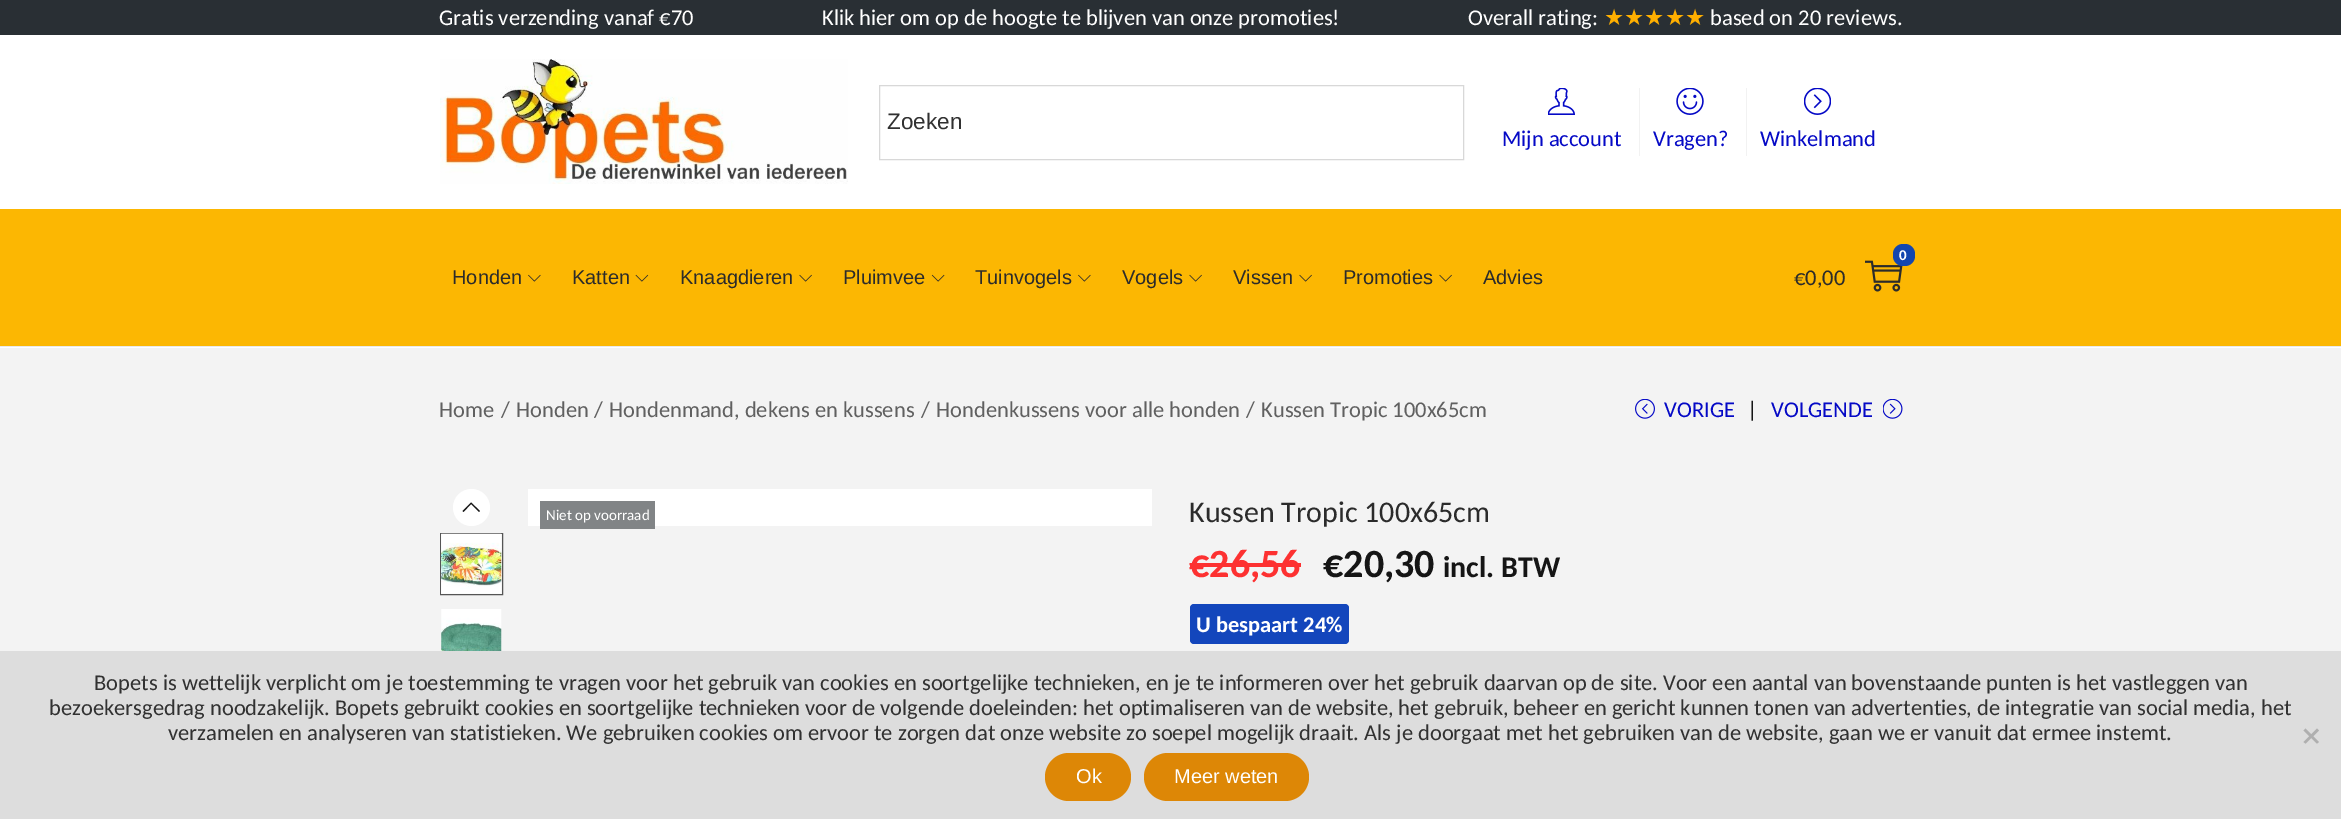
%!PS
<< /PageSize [2341 819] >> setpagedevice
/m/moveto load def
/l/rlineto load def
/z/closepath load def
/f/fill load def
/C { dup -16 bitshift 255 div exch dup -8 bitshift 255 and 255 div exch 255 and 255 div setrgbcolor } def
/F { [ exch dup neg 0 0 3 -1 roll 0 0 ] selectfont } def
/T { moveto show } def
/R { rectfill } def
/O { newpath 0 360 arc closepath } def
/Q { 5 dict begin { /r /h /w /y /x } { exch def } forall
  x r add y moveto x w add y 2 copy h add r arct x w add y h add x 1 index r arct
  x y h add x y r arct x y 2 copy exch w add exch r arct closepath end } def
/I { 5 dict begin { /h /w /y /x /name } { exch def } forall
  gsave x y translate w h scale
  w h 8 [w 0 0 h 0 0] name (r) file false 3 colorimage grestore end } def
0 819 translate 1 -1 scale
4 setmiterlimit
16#FFFFFF C
0 0 2341 819 R
16#292F34 C
0 0 2341 35 R
/Carlito-Regular 22.5 F
16#FFFFFF C
(Gratis verzending vanaf €70) 439 25 T
(Klik hier om op de hoogte te blijven van onze promoties!) 822 25 T
(Overall rating:) 1468 25 T
/DejaVuSans-Regular 22.5 F
16#FFAF00 C
(★★★★★) 1604 25 T
/Carlito-Regular 22.5 F
16#FFFFFF C
(based on 20 reviews.) 1710 25 T
16#EAEAEA C
0 346 2341 1 R
(1.rgb) 440 59 408 125 I
16#D8D8D8 C
879.5 85.5 584 74 rectstroke
/LiberationSans-Regular 22.5 F
16#313131 C
(Zoeken) 887 129 T
(2.rgb) 1548 88 27 27 I
/Carlito-Regular 22.5 F
16#0509C6 C
(Mijn account) 1502 146 T
16#F2F2F2 C
1639 88 1 68 R
(3.rgb) 1676 88 28 27 I
16#0509C6 C
(Vragen?) 1653 146 T
16#F2F2F2 C
1746 88 1 68 R
(4.rgb) 1804 88 27 27 I
16#0509C6 C
(Winkelmand) 1760 146 T
16#FCB702 C
0 209 2341 137 R
/LiberationSans-Regular 20 F
16#2B2B2B C
(Honden) 452 284 T
(5.rgb) 528 274 13 8 I
(Katten) 572 284 T
(6.rgb) 635 274 14 8 I
(Knaagdieren) 680 284 T
(7.rgb) 799 274 13 8 I
(Pluimvee) 843 284 T
(8.rgb) 931 274 14 8 I
(Tuinvogels) 975 284 T
(5.rgb) 1078 274 13 8 I
(Vogels) 1122 284 T
(7.rgb) 1189 274 13 8 I
(Vissen) 1233 284 T
(7.rgb) 1299 274 13 8 I
(Promoties) 1343 284 T
(7.rgb) 1439 274 13 8 I
(Advies) 1483 284 T
(9.rgb) 1865 260 38 32 I
16#1346AF C
1893 244 22 22 10 Q f
/Carlito-Bold 15 F
16#FFFFFF C
(0) 1899 260 T
/Carlito-Regular 22.5 F
16#2B2B2B C
(€0,00) 1794 285 T
16#F3F3F3 C
0 348 2341 303 R
16#606060 C
(Home) 439 417 T
(/) 501 417 T
(Honden) 516 417 T
(/) 594 417 T
(Hondenmand, dekens en kussens) 609 417 T
(/) 921 417 T
(Hondenkussens voor alle honden) 936 417 T
(/) 1246 417 T
(Kussen Tropic 100x65cm) 1261 417 T
(10.rgb) 1635 399 20 20 I
16#0509C6 C
(VORIGE) 1664 417 T
16#151515 C
(|) 1747 417 T
16#0509C6 C
(VOLGENDE) 1771 417 T
(11.rgb) 1883 399 20 20 I
16#FFFFFF C
471.5 507.5 18.5 O f
16#151515 C
480 511 m -1 1 l -8 -8 l -7.5 8 l -1 -1 l 8.5 -8.5 l z f
16#555555 C
440.5 533.5 62 61 rectstroke
(12.rgb) 441 533 61 61 I
(13.rgb) 441 609 61 42 I
16#FFFFFF C
528 489 624 37 R
16#818486 C
540 501 115 28 R
/Carlito-Regular 15 F
16#FFFFFF C
(Niet op voorraad) 546 520 T
/Carlito-Regular 30 F
16#2B2B2B C
(Kussen Tropic 100x65cm) 1189 522 T
/Carlito-Bold 40 F
16#FD3131 C
(€26,56) 1189 577 T
1190 563 111 4 R
16#151515 C
(€20,30) 1323 577 T
/Carlito-Bold 30 F
(incl. BTW) 1443 577 T
16#1346BC C
1190 604 159 40 4 Q f
/Carlito-Bold 22.5 F
16#FFFFFF C
(U bespaart 24%) 1196 632 T
16#DDDDDD C
0 651 2341 168 R
/Carlito-Regular 22.5 F
16#313131 C
(Bopets is wettelijk verplicht om je toestemming te vragen voor het gebruik van cookies en soortgelijke technieken, en je te informeren over het gebruik daarvan op de site. Voor een aantal van bovenstaande punten is het vastleggen van) 94 690 T
(bezoekersgedrag noodzakelijk. Bopets gebruikt cookies en soortgelijke technieken voor de volgende doeleinden: het optimaliseren van de website, het gebruik, beheer en gericht kunnen tonen van advertenties, de integratie van social media, het) 49 715 T
(verzamelen en analyseren van statistieken. We gebruiken cookies om ervoor te zorgen dat onze website zo soepel mogelijk draait. Als je doorgaat met het gebruiken van de website, gaan we er vanuit dat ermee instemt.) 168 740 T
16#AFAFAF C
2317 728.5 m 2 2 l -13.5 13 l -2 -1.5 l z f
2303.5 730.5 m 2 -2 l 13.5 13.5 l -2 1.5 l z f
16#DD8706 C
1045 753 86 48 24 Q f
/LiberationSans-Regular 20 F
16#FFFFFF C
(Ok) 1076 783 T
16#DD8706 C
1144 753 165 48 24 Q f
16#FFFFFF C
(Meer weten) 1174 783 T
showpage
